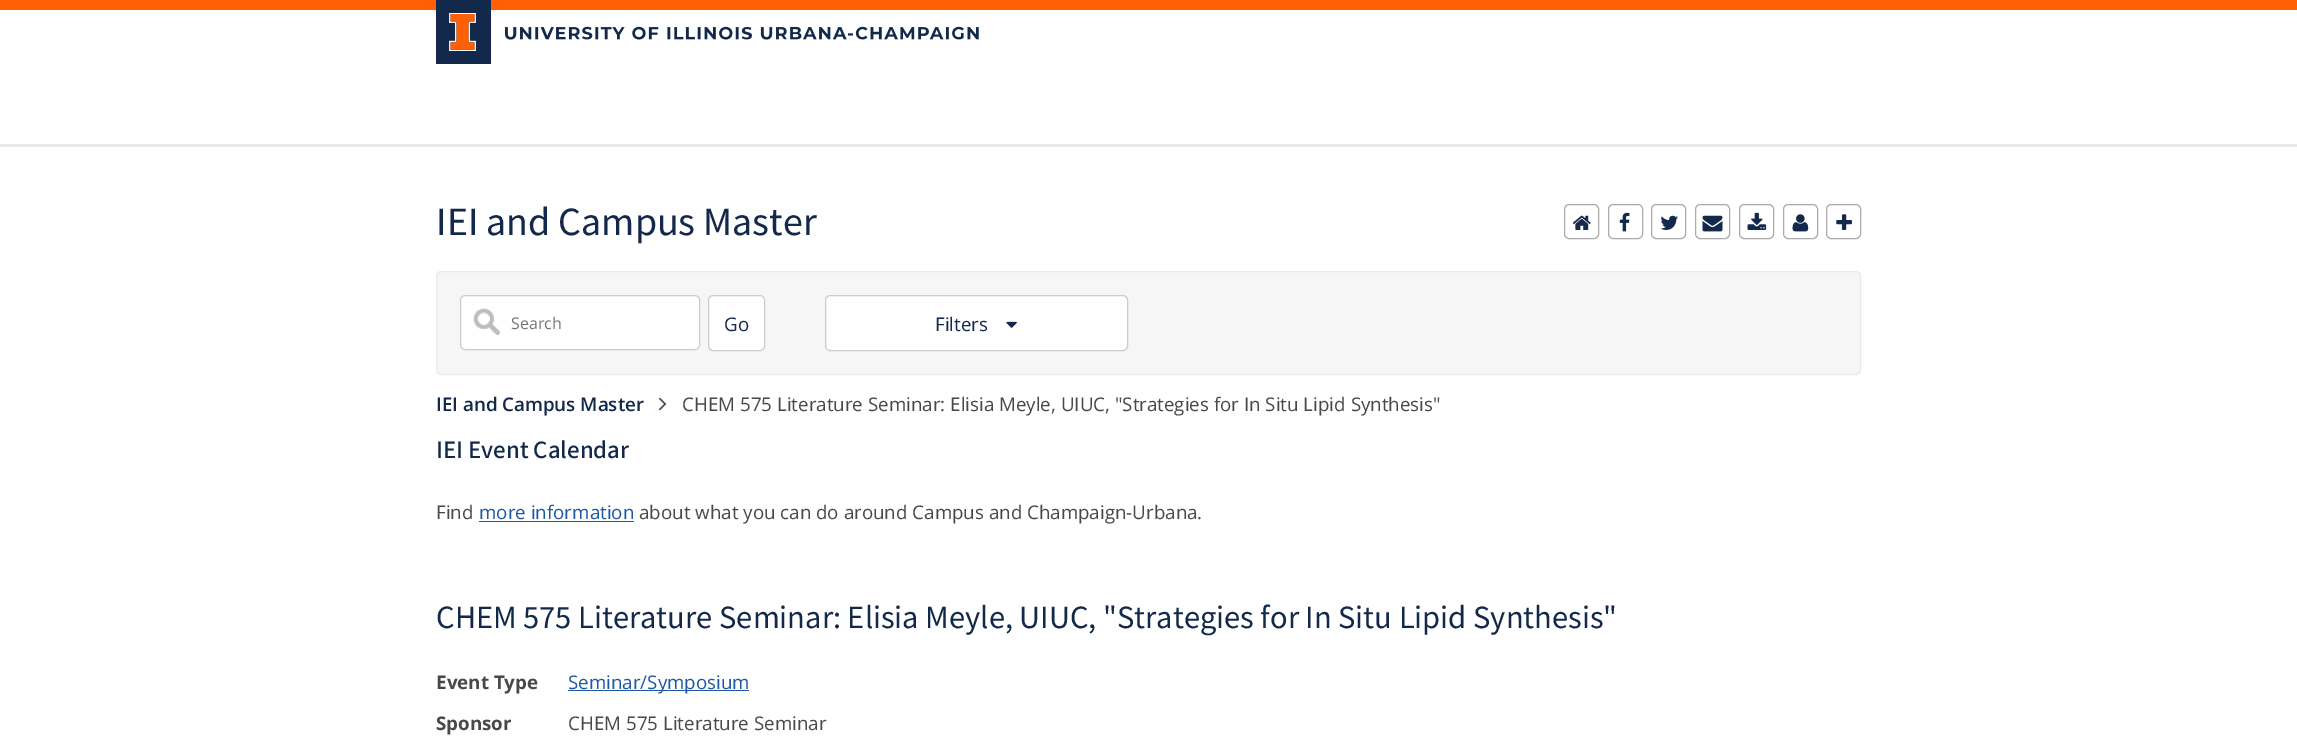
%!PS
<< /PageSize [2297 753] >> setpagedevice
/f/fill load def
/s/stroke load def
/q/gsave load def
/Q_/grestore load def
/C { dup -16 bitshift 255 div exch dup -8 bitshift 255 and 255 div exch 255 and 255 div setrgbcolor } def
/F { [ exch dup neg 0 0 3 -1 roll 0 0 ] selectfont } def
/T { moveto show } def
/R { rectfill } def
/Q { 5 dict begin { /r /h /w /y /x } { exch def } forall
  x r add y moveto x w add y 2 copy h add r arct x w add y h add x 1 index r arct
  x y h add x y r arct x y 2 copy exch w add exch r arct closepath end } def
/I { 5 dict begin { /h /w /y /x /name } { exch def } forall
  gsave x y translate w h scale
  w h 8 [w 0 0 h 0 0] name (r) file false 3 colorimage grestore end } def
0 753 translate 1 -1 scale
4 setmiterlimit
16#FFFFFF C
0 0 2297 753 R
16#E8E9EB C
0 144 2297 3 R
16#FF5F05 C
0 0 2297 10 R
16#13294B C
436 0 55 64 R
(1.rgb) 449 13 27 38 I
(2.rgb) 505 26 474 14 I
/SourceSansPro-Regular 40 F
(IEI and Campus Master) 436 235 T
16#AAAAAA C
1564.5 204.5 34 34 4.5 Q s
(3.rgb) 1572 215 19 15 I
1608.5 204.5 34 34 4.5 Q s
(4.rgb) 1619 212 11 20 I
1651.5 204.5 34 34 4.5 Q s
(5.rgb) 1660 215 18 15 I
1695.5 204.5 34 34 4.5 Q s
(6.rgb) 1702 215 21 17 I
1739.5 204.5 34 34 4.5 Q s
(7.rgb) 1747 212 20 18 I
1783.5 204.5 34 34 4.5 Q s
(8.rgb) 1792 214 17 18 I
1826.5 204.5 34 34 4.5 Q s
(9.rgb) 1836 214 16 16 I
16#F6F6F6 C
436.5 271.5 1424 103 4.5 Q q f Q_
16#E9E9E9 C
s
16#FFFFFF C
460 295 240 55 5 Q f
(10.rgb) 473 308 27 27 I
16#CCCCCC C
460.5 295.5 239 54 4.5 Q s
/OpenSans-Regular 16 F
16#757575 C
(Search) 511 329 T
16#FFFFFF C
708.5 295.5 56 55 4.5 Q q f Q_
16#CCCCCC C
s
/OpenSans-Regular 18.75 F
16#13294B C
(Go) 724 331 T
16#FFFFFF C
825.5 295.5 302 55 4.5 Q q f Q_
16#CCCCCC C
s
16#13294B C
(Filters) 935 331 T
(11.rgb) 1006 321 11 7 I
/OpenSans-SemiBold 18.75 F
(IEI and Campus Master) 436 411 T
(12.rgb) 659 397 8 14 I
/OpenSans-Regular 18.75 F
16#48484A C
(CHEM 575 Literature Seminar: Elisia Meyle, UIUC, "Strategies for In Situ Lipid Synthesis") 682 411 T
/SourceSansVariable-Medium 25 F
16#13294B C
(IEI Event Calendar) 436 458 T
/OpenSans-Regular 18.75 F
16#48484A C
(Find) 436 519 T
16#1D58A7 C
(more information) 479 519 T
479 521 155 1 R
16#48484A C
(about what you can do around Campus and Champaign-Urbana.) 639 519 T
/SourceSansPro-Regular 32.5 F
16#13294B C
(CHEM 575 Literature Seminar: Elisia Meyle, UIUC, "Strategies for In Situ Lipid Synthesis") 436 628 T
/OpenSans-Bold 18.75 F
16#48484A C
(Event Type) 436 689 T
16#1D58A7 C
568 690 181 1 R
/OpenSans-Regular 18.75 F
(Seminar/Symposium) 568 689 T
/OpenSans-Bold 18.75 F
16#48484A C
(Sponsor) 436 730 T
/OpenSans-Regular 18.75 F
(CHEM 575 Literature Seminar) 568 730 T
showpage
